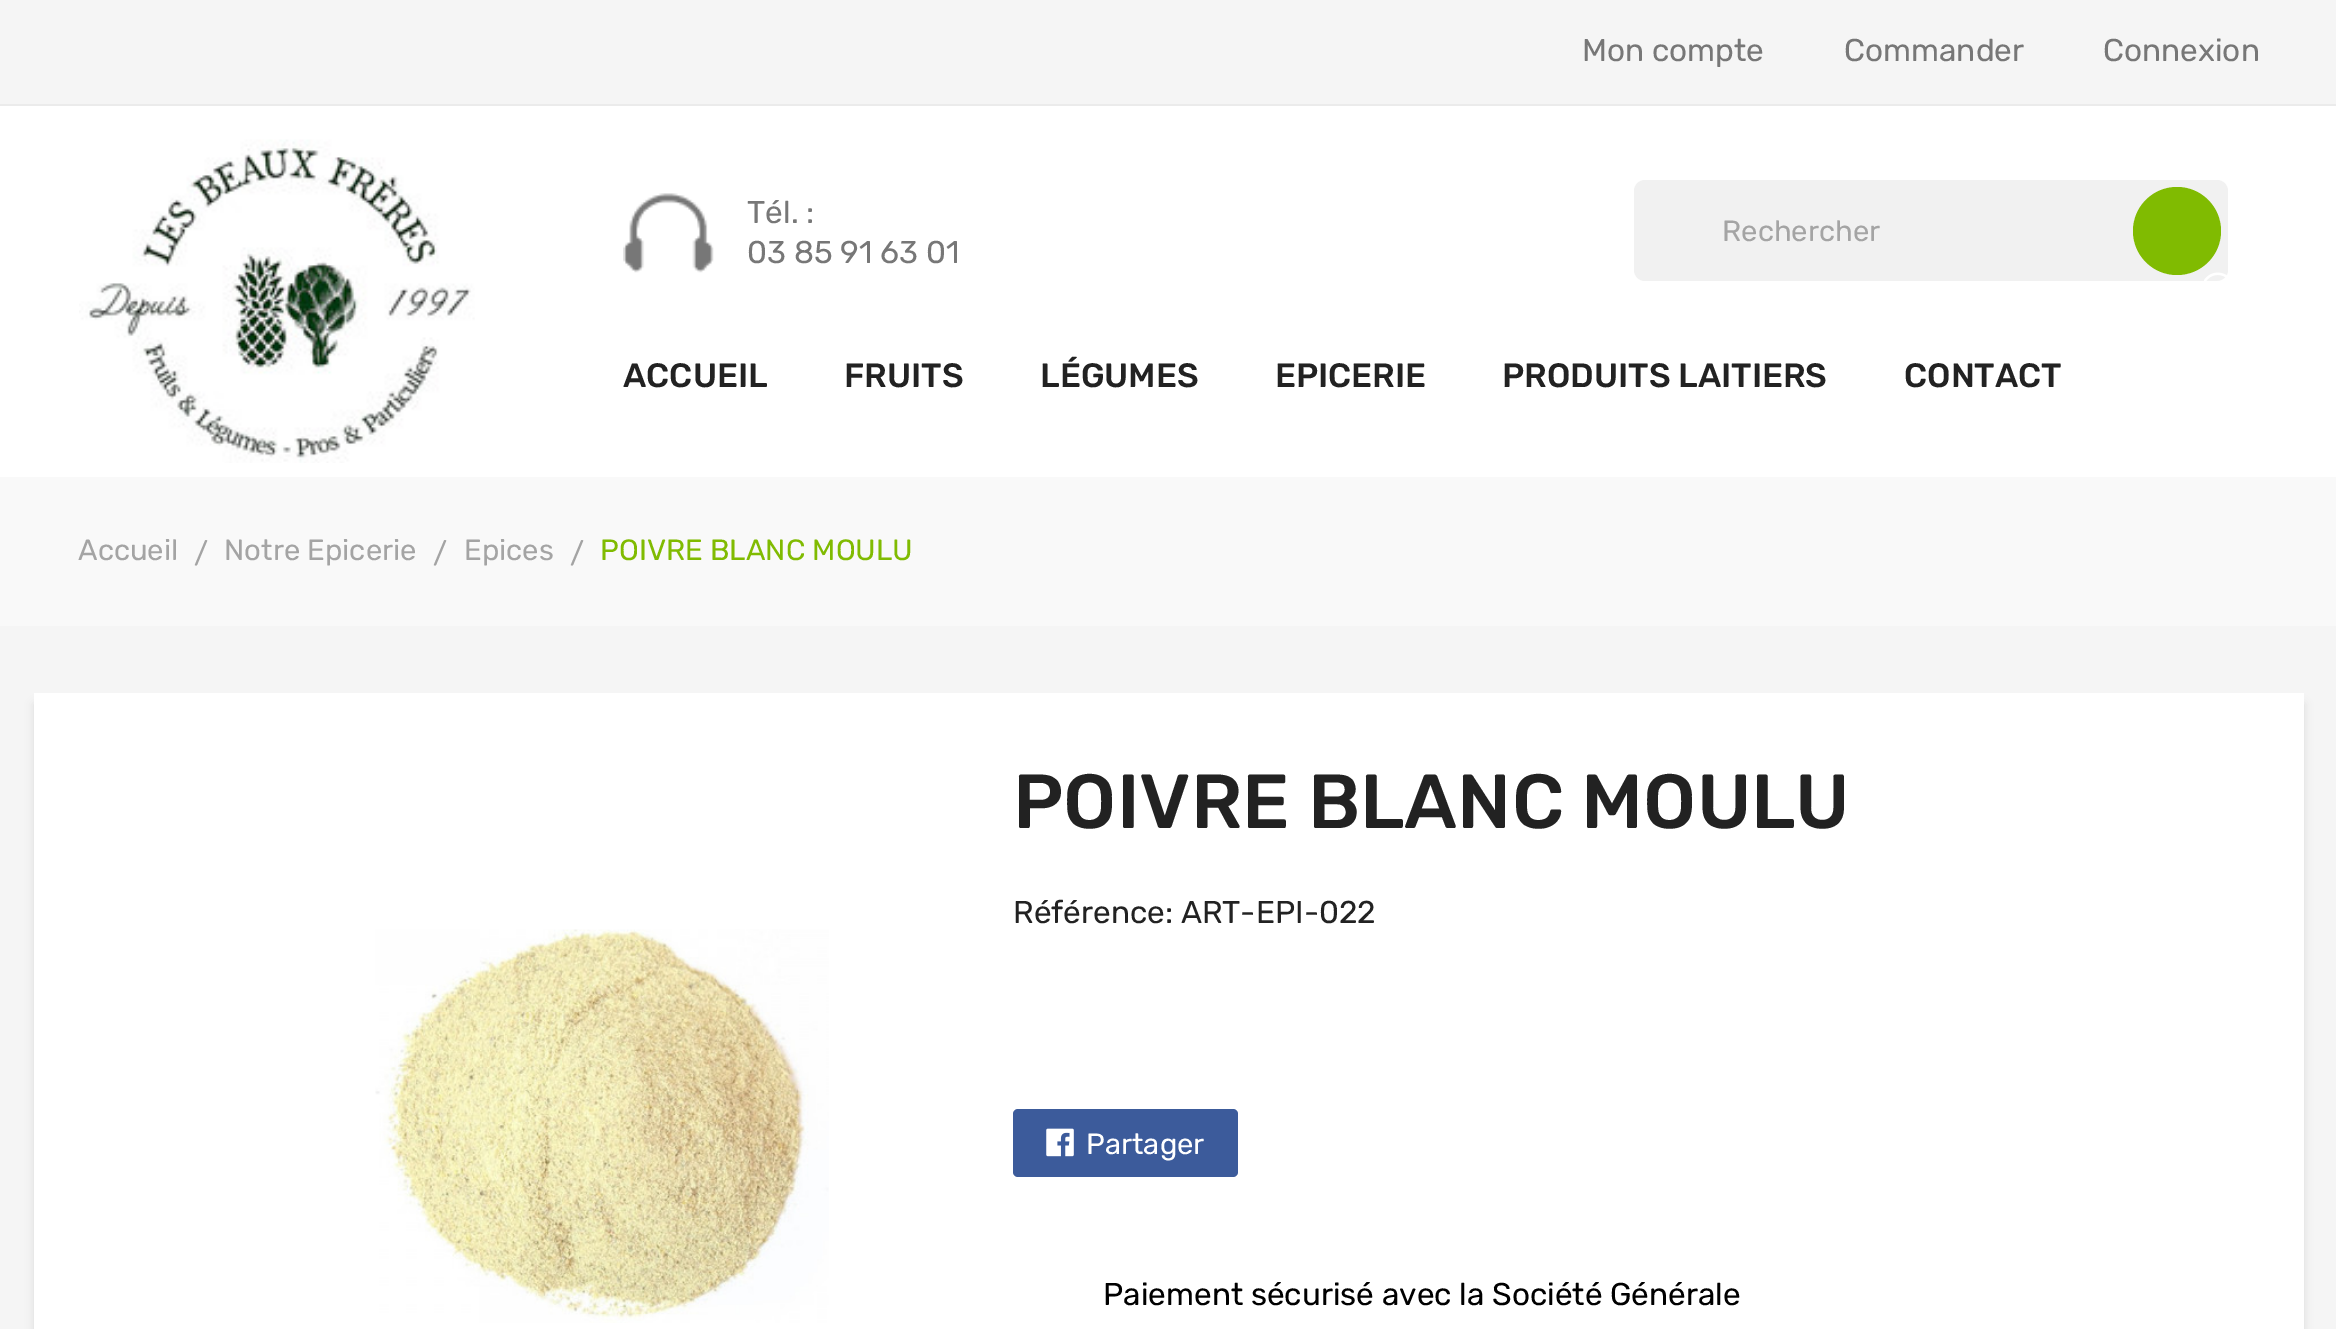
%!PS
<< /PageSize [2336 1329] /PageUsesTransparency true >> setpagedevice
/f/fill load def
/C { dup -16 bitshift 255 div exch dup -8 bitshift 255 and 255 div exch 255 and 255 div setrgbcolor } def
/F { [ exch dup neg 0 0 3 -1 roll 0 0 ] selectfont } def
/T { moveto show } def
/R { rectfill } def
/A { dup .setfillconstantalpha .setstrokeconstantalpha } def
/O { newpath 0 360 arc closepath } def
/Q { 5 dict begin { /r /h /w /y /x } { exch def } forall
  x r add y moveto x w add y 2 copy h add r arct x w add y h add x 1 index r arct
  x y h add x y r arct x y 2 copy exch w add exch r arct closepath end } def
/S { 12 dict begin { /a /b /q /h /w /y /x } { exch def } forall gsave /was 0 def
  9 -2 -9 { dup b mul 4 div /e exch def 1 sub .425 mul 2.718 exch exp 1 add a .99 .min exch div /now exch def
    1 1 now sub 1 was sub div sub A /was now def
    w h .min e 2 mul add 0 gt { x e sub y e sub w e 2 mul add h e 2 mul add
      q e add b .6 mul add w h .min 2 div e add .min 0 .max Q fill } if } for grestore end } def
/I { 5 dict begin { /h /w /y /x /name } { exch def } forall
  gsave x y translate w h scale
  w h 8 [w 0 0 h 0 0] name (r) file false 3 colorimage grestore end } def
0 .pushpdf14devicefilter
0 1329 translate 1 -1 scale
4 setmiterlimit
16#F5F5F5 C
0 0 2336 1329 R
16#FFFFFF C
0 106 2336 371 R
16#EBEBEB C
0 104 2336 2 R
/Rubik-Regular 31.5 F
16#777777 C
(Mon compte) 1582 61 T
(Commander) 1844 61 T
(Connexion) 2103 61 T
(1.rgb) 79 139 396 324 I
(2.rgb) 623 193 91 80 I
(Tél. :) 747 223 T
(03 85 91 63 01) 747 263 T
16#F1F1F1 C
1634 180 594 101 11 Q f
/Rubik-Regular 29.25 F
16#A4A4A4 C
(Rechercher) 1722 241 T
16#80BB01 C
2177 231 44 O f
(3.rgb) 2204 272 23 9 I
/Rubik-Medium 33.75 F
16#222222 C
(ACCUEIL) 623 387 T
(FRUITS) 844 387 T
(LÉGUMES) 1040 387 T
(EPICERIE) 1275 387 T
(PRODUITS LAITIERS) 1502 387 T
(CONTACT) 1904 387 T
16#F9F9F9 C
0 477 2336 149 R
/Rubik-Regular 29.25 F
16#A4A4A4 C
(Accueil) 78 560 T
(/) 194 563 T
(Notre Epicerie) 224 560 T
(/) 433 563 T
(Epices) 464 560 T
(/) 570 563 T
16#80BB01 C
(POIVRE BLANC MOULU) 600 560 T
16#000000 C
34 704 2270 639 0 4.5 .1 S
16#FFFFFF C
34 693 2270 636 R
(4.rgb) 375 929 454 394 I
/Rubik-Medium 76.5 F
16#222222 C
(POIVRE BLANC MOULU) 1013 828 T
/Rubik-Regular 31.5 F
(Référence: ART-EPI-022) 1013 923 T
16#3C5B9B C
1013 1109 225 68 5 Q f
(5.rgb) 1046 1128 28 29 I
/Rubik-Regular 29.25 F
16#FFFFFF C
(Partager) 1086 1154 T
/Rubik-Regular 31.5 F
16#000000 C
(Paiement sécurisé avec la Société Générale) 1103 1305 T
.poppdf14devicefilter showpage
